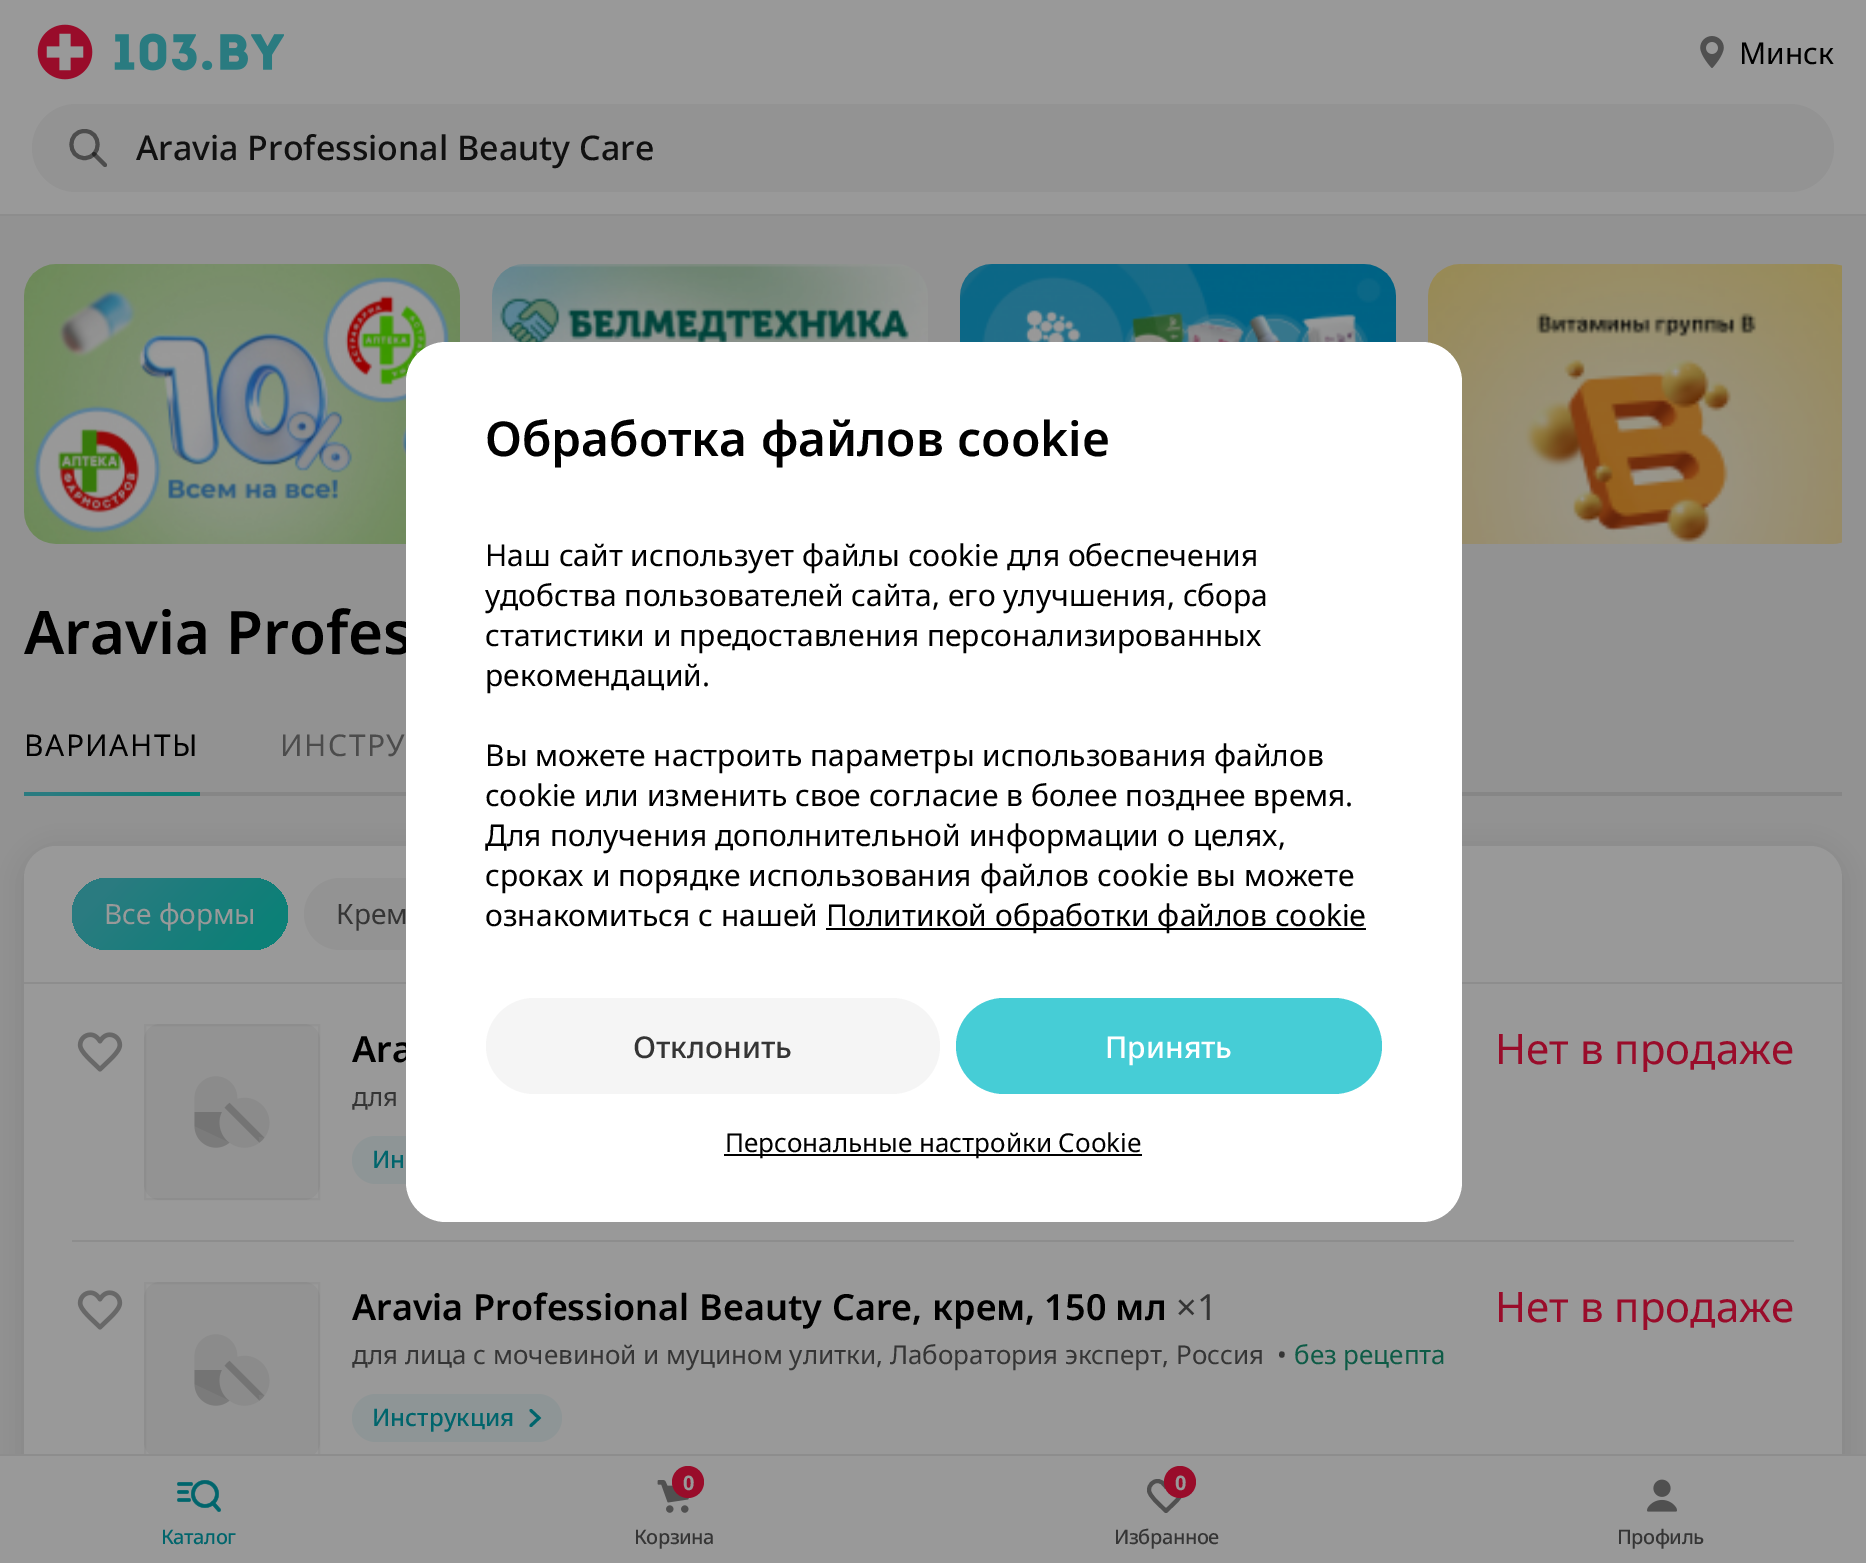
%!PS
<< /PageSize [1866 1563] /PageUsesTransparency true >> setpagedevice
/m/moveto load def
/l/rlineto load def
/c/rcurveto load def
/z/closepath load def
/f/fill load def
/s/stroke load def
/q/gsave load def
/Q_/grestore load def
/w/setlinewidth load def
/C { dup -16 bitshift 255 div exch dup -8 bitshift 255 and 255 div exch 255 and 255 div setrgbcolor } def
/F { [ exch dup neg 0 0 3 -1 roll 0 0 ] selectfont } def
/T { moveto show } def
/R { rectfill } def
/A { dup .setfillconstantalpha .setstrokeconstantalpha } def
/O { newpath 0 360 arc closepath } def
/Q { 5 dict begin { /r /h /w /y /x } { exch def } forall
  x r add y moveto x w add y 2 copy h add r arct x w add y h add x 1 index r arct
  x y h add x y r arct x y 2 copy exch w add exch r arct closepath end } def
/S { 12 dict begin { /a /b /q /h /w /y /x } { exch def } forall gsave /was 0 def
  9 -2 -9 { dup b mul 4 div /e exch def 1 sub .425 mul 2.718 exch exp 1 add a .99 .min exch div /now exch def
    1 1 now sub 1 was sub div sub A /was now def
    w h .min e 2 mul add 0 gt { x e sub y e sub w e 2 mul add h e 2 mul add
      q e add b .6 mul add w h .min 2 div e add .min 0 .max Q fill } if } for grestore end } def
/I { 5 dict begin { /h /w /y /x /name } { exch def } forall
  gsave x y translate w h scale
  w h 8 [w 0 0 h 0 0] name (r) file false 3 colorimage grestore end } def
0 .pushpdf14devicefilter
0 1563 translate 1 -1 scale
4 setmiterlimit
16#929292 C
0 0 1866 1563 R
16#999999 C
0 0 1866 214 R
16#8D8D8D C
0 214 1866 2 R
(1.rgb) 37 24 247 56 I
(2.rgb) 1700 36 24 32 I
/NotoSans-Regular 30 F
16#000000 C
(Минск) 1739 64 T
16#939393 C
32 104 1802 88 44 Q f
16#4C4C4C C
4 w
84.5 158 m 17.5 0 17.5 -27 0 -27 c -17.5 0 -17.5 27 0 27 c z s
0.48 A
16#000000 C
1 setlinecap
94 154 m 11 11 l s
/NotoSans-Medium 34 F
1 A
16#111111 C
(Aravia Professional Beauty Care) 136 160 T
(3.rgb) 24 264 436 280 I
(4.rgb) 492 264 436 78 I
(5.rgb) 960 264 436 78 I
(6.rgb) 1428 264 414 280 I
/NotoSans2-SemiBold 60 F
16#000000 C
(Aravia Profes) 24 654 T
/NotoSans-Regular 30 F
24 756 m 1.5 0 (ВАРИАНТЫ) ashow
q 24 792 m 176 0 l 0 4 l -176 0 l z clip newpath
<< /ShadingType 2 /ColorSpace /DeviceRGB /Coords [65 749 159 839] /Extend [true true] /Function << /FunctionType 3 /Domain [0 1] /Functions [<< /FunctionType 2 /Domain [0 1] /C0 [.165 .482 .502] /C1 [.165 .482 .502] /N 1 >> << /FunctionType 2 /Domain [0 1] /C0 [.165 .482 .502] /C1 [.047 .502 .467] /N 1 >> << /FunctionType 2 /Domain [0 1] /C0 [.047 .502 .467] /C1 [.047 .502 .467] /N 1 >>] /Bounds [.16 .86] /Encode [0 1 0 1 0 1] >> >> shfill Q_
16#4C4C4C C
280 756 m 1.5 0 (ИНСТРУ) ashow
16#868686 C
200 792 1642 4 R
16#000000 C
24 850 1818 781 32 12 .08 S
16#999999 C
56 846 m 1754 0 l 17.5 0 32 14.5 32 32 c 0 106 l -1818 0 l 0 -106 l 0 -17.5 14.5 -32 32 -32 c z f
16#8D8D8D C
24 982 1818 2 R
q 72 878 216 72 36 Q clip newpath
<< /ShadingType 2 /ColorSpace /DeviceRGB /Coords [105 843 255 985] /Extend [true true] /Function << /FunctionType 3 /Domain [0 1] /Functions [<< /FunctionType 2 /Domain [0 1] /C0 [.165 .482 .502] /C1 [.165 .482 .502] /N 1 >> << /FunctionType 2 /Domain [0 1] /C0 [.165 .482 .502] /C1 [.047 .502 .467] /N 1 >> << /FunctionType 2 /Domain [0 1] /C0 [.047 .502 .467] /C1 [.047 .502 .467] /N 1 >>] /Bounds [.16 .86] /Encode [0 1 0 1 0 1] >> >> shfill Q_
/NotoSans-Regular 28 F
16#999999 C
(Все формы) 104 924 T
16#939393 C
304 878 136 72 36 Q f
16#353535 C
(Крем) 336 924 T
16#999999 C
24 984 1818 470 R
(7.rgb) 77 1032 46 40 I
16#939393 C
144 1024 176 176 16 Q f
0.04 A
16#000000 C
2 w
0 setlinecap
145 1025 174 174 rectstroke
1 A
(8.rgb) 194 1076 76 72 I
/NotoSans-SemiBold 36 F
352 1062 m .5 0 32 (Ara) widthshow
/NotoSans-Regular 26 F
16#353535 C
(для) 352 1106 T
q
1494 1024 300 48 rectclip
/NotoSans-Regular 42 F
16#990C2A C
(Нет в продаже) 1495 1064 T
Q_
16#8E9596 C
352 1136 210 48 24 Q f
/NotoSans-Medium 24 F
16#00656C C
(Ин) 372 1168 T
16#8D8D8D C
72 1240 1722 2 R
(7.rgb) 77 1290 46 40 I
16#939393 C
144 1282 176 176 16 Q f
0.04 A
16#000000 C
145 1283 174 174 rectstroke
1 A
(8.rgb) 194 1334 76 72 I
/NotoSans-SemiBold 36 F
352 1320 m .5 0 32 (Aravia Professional Beauty Care, крем) widthshow
(, 150 мл) 1025 1320 T
/NotoSans-Regular 36 F
16#353535 C
(×1) 1176 1320 T
/NotoSans-Regular 26 F
(для лица с мочевиной и муцином улитки, Лаборатория эксперт, Россия) 352 1364 T
(•) 1277 1364 T
16#0E5B46 C
(без рецепта) 1294 1364 T
q
1494 1282 300 48 rectclip
/NotoSans-Regular 42 F
16#990C2A C
(Нет в продаже) 1495 1322 T
Q_
16#8E9596 C
352 1394 210 48 24 Q f
/NotoSans-Medium 24 F
16#00656C C
(Инструкция) 372 1426 T
3 w
1 setlinecap
531 1425.5 m 8 -7.5 l -8 -7.5 l s
16#999999 C
0 1456 1866 107 R
16#8D8D8D C
0 1454 1866 2 R
(9.rgb) 177 1480 44 32 I
/NotoSans-Medium 20 F
16#00656C C
161 1544 m -.5 0 (Каталог) ashow
(10.rgb) 657 1480 32 33 I
16#990C2A C
688 1482 16 O f
/NotoSans-Bold 20 F
16#999999 C
(0) 683 1490 T
/NotoSans-Medium 20 F
16#353535 C
634 1544 m -.5 0 (Корзина) ashow
16#505050 C
4 w
0 setlinecap
1 setlinejoin
1174.5 1481 m -3.5 0 -6 2 -8.5 6 c -2.5 -4 -5 -6 -8.5 -6 c -4.5 0 -8.5 4 -8.5 9 c 0 6 10 14 17 21 c 7 -7 17 -15 17 -21 c 0 -5 -4 -9 -8.5 -9 c z s
16#990C2A C
1180 1482 16 O f
/NotoSans-Bold 20 F
16#999999 C
(0) 1175 1490 T
/NotoSans-Medium 20 F
16#353535 C
1114 1544 m -.5 0 (Избранное) ashow
(11.rgb) 1647 1479 30 33 I
1617 1544 m -.5 0 (Профиль) ashow
16#FFFFFF C
406 342 1056 880 40 Q f
/NotoSans-SemiBold 48 F
16#000000 C
485 456 m 1 0 32 (Обработка файлов cookie) widthshow
/NotoSans-Regular 30 F
(Наш сайт использует файлы cookie для обеспечения) 485 566 T
(удобства пользователей сайта, его улучшения, сбора) 485 606 T
(статистики и предоставления персонализированных) 485 646 T
(рекомендаций.) 485 686 T
(Вы можете настроить параметры использования файлов) 485 766 T
(cookie или изменить свое согласие в более позднее время.) 485 806 T
(Для получения дополнительной информации о целях,) 485 846 T
(сроках и порядке использования файлов cookie вы можете) 485 886 T
(ознакомиться с нашей) 485 926 T
826 928 540 2 R
(Политикой обработки файлов cookie) 826 926 T
16#F5F5F5 C
486 998 454 96 48 Q f
/NotoSans-Medium 30 F
16#353535 C
(Отклонить) 633 1058 T
16#46CDD6 C
956 998 426 96 48 Q f
16#FFFFFF C
(Принять) 1105 1058 T
16#000000 C
724 1154 418 2 R
/NotoSans-Regular 26 F
(Персональные настройки Cookie) 725 1152 T
.poppdf14devicefilter showpage
